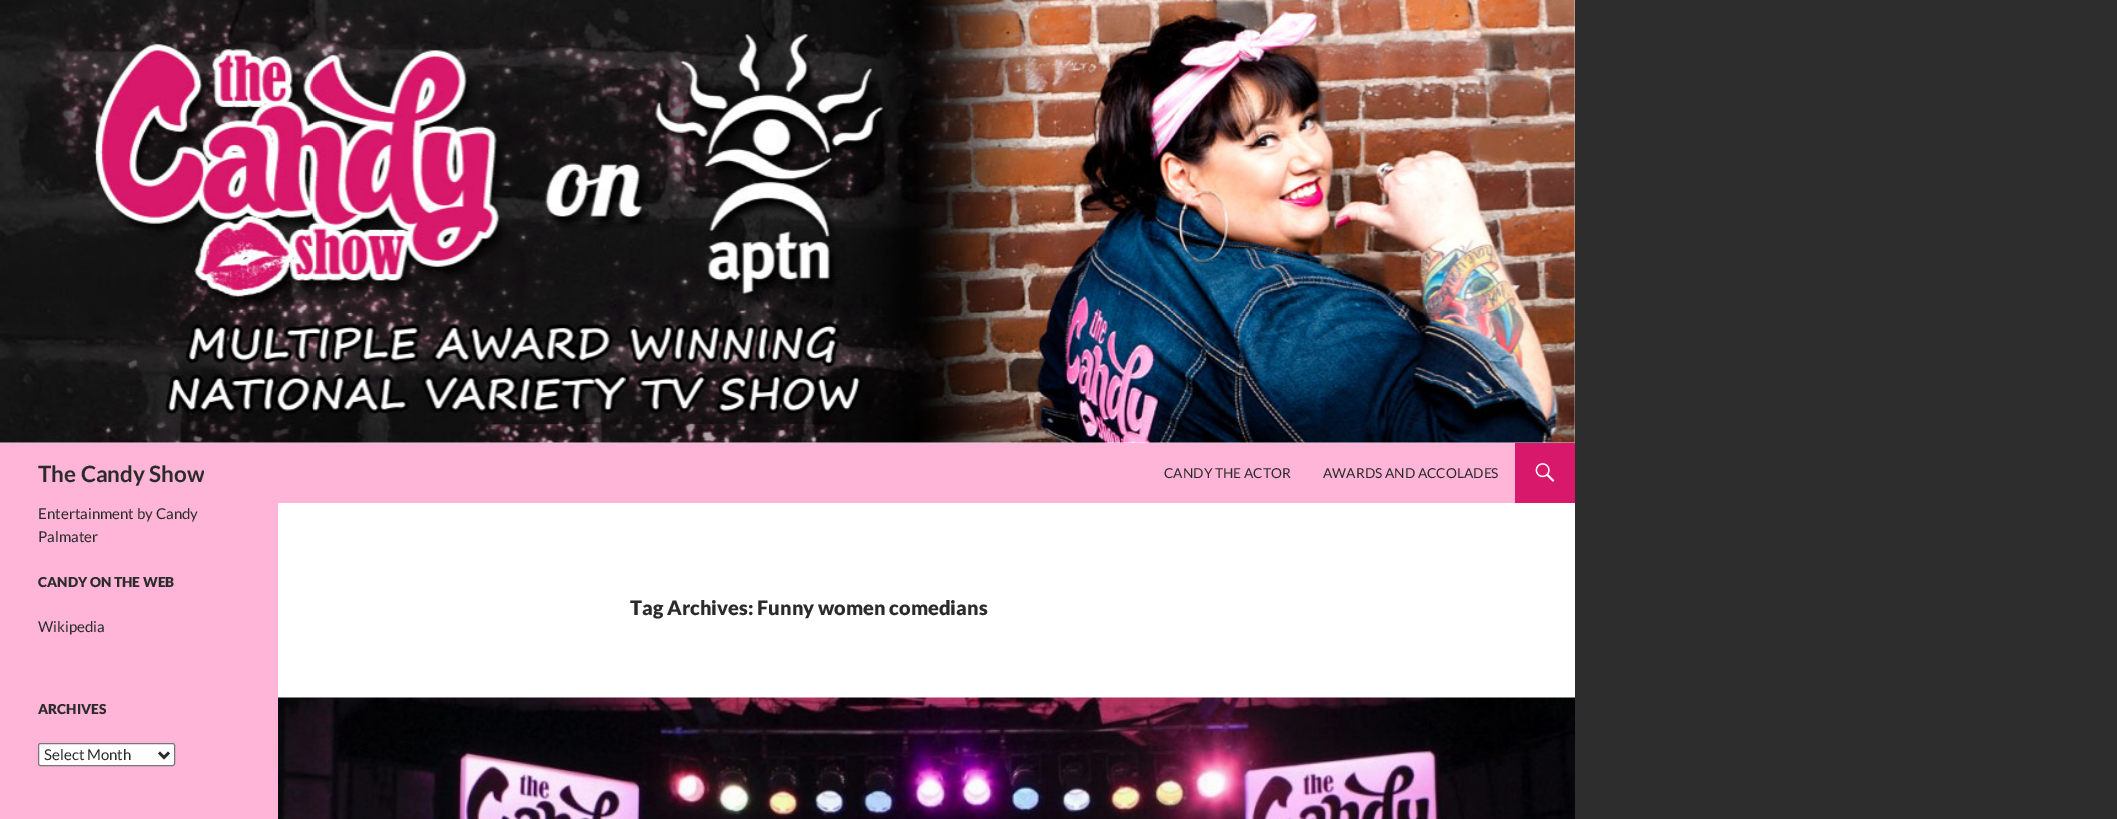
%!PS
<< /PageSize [2117 819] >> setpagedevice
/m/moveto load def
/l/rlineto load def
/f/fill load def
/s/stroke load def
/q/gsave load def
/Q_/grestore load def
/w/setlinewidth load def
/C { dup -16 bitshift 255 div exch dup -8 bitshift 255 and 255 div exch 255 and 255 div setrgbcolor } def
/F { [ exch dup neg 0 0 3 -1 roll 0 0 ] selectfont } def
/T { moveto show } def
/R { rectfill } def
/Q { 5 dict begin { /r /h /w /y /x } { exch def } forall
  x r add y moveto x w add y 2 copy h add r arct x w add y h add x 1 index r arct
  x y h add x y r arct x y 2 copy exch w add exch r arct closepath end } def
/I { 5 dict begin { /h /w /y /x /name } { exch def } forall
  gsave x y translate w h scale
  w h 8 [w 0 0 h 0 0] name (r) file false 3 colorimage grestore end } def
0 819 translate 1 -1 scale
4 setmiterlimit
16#2D2D2D C
0 0 2117 819 R
16#FFFFFF C
278 503 1297 195 R
0 0 1575 443 R
(1.rgb) 0 0 1575 443 I
16#FFB5D7 C
0 443 1515 60 R
q
38 443 166 60 rectclip
/Lato-Bold 22.5 F
16#2B2B2B C
(The Candy Show) 38 482 T
Q_
/Lato-Regular 13.75 F
16#2B2B2B C
(CANDY THE ACTOR) 1164 478 T
(AWARDS AND ACCOLADES) 1323 478 T
16#D8186B C
1515 443 60 60 R
(2.rgb) 1535 463 20 19 I
16#FFB5D7 C
0 503 278 316 R
/Lato-Regular 15 F
16#2B2B2B C
(Entertainment by Candy) 38 519 T
(Palmater) 38 542 T
/Lato-Black 13.75 F
(CANDY ON THE WEB) 38 587 T
/Lato-Regular 15 F
(Wikipedia) 38 632 T
/Lato-Black 13.75 F
(ARCHIVES) 38 714 T
16#FFFFFF C
38.5 743.5 136 22 2 Q q f Q_
16#767676 C
s
16#2B2B2B C
2.5 w
159 752.5 m 5 5 l 5 -5 l s
/Lato-Regular 15 F
(Select Month) 44 760 T
/Lato-Black 20 F
(Tag Archives: Funny women comedians) 630 615 T
(3.rgb) 278 697 1297 122 I
showpage
